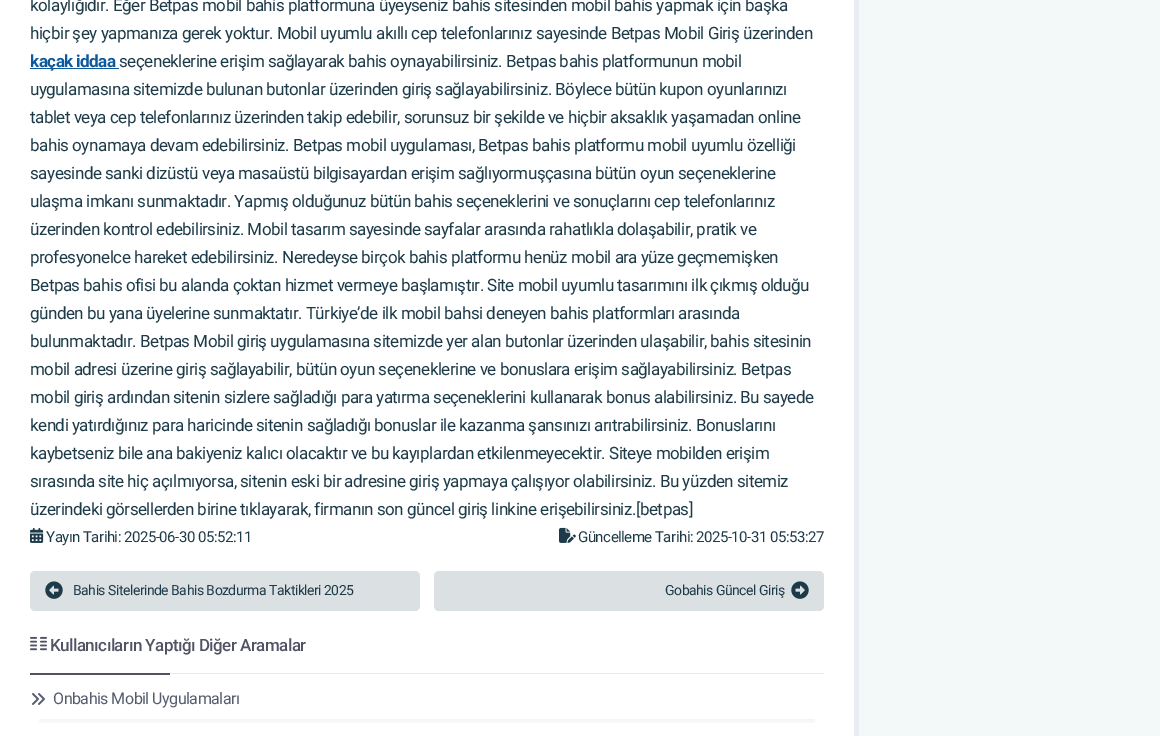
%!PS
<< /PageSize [1160 736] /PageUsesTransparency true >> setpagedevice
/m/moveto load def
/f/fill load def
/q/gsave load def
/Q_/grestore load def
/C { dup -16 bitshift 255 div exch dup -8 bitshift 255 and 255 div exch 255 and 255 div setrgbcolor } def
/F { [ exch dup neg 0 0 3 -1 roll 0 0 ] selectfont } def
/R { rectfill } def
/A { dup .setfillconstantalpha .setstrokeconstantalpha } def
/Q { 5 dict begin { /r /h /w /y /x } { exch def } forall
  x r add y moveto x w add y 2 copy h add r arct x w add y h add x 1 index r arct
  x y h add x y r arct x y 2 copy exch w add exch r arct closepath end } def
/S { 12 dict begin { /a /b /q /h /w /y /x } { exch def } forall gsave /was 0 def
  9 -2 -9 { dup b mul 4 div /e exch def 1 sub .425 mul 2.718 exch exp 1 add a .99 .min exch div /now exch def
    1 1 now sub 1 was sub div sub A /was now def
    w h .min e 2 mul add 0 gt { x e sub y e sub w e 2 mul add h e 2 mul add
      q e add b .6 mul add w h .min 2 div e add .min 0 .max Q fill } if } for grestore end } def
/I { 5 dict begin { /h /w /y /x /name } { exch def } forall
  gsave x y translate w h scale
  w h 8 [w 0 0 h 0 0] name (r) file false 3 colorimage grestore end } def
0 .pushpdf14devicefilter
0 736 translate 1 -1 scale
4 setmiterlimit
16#F3F8F9 C
0 0 1160 736 R
16#FFFFFF C
0 0 854 736 R
16#E7EDF1 C
854 0 5 736 R
/Roboto-Regular 17 F
16#1D3A48 C
30 11 m -.51 0 (kolaylığıdır. Eğer Betpas mobil bahis platformuna üyeyseniz bahis sitesinden mobil bahis yapmak için başka) ashow
30 39 m -.51 0 (hiçbir şey yapmanıza gerek yoktur. Mobil uyumlu akıllı cep telefonlarınız sayesinde Betpas Mobil Giriş üzerinden) ashow
16#0C599C C
30 68 89 1 R
/Roboto-Bold 17 F
30 67 m -.51 0 (kaçak iddaa) ashow
/Roboto-Regular 17 F
16#1D3A48 C
119 67 m -.51 0 (seçeneklerine erişim sağlayarak bahis oynayabilirsiniz. Betpas bahis platformunun mobil) ashow
30 95 m -.51 0 (uygulamasına sitemizde bulunan butonlar üzerinden giriş sağlayabilirsiniz. Böylece bütün kupon oyunlarınızı) ashow
30 123 m -.51 0 (tablet veya cep telefonlarınız üzerinden takip edebilir, sorunsuz bir şekilde ve hiçbir aksaklık yaşamadan online) ashow
30 151 m -.51 0 (bahis oynamaya devam edebilirsiniz. Betpas mobil uygulaması, Betpas bahis platformu mobil uyumlu özelliği) ashow
30 179 m -.51 0 (sayesinde sanki dizüstü veya masaüstü bilgisayardan erişim sağlıyormuşçasına bütün oyun seçeneklerine) ashow
30 207 m -.51 0 (ulaşma imkanı sunmaktadır. Yapmış olduğunuz bütün bahis seçeneklerini ve sonuçlarını cep telefonlarınız) ashow
30 235 m -.51 0 (üzerinden kontrol edebilirsiniz. Mobil tasarım sayesinde sayfalar arasında rahatlıkla dolaşabilir, pratik ve) ashow
30 263 m -.51 0 (profesyonelce hareket edebilirsiniz. Neredeyse birçok bahis platformu henüz mobil ara yüze geçmemişken) ashow
30 291 m -.51 0 (Betpas bahis ofisi bu alanda çoktan hizmet vermeye başlamıştır. Site mobil uyumlu tasarımını ilk çıkmış olduğu) ashow
30 319 m -.51 0 (günden bu yana üyelerine sunmaktatır. Türkiye’de ilk mobil bahsi deneyen bahis platformları arasında) ashow
30 347 m -.51 0 (bulunmaktadır. Betpas Mobil giriş uygulamasına sitemizde yer alan butonlar üzerinden ulaşabilir, bahis sitesinin) ashow
30 375 m -.51 0 (mobil adresi üzerine giriş sağlayabilir, bütün oyun seçeneklerine ve bonuslara erişim sağlayabilirsiniz. Betpas) ashow
30 403 m -.51 0 (mobil giriş ardından sitenin sizlere sağladığı para yatırma seçeneklerini kullanarak bonus alabilirsiniz. Bu sayede) ashow
30 431 m -.51 0 (kendi yatırdığınız para haricinde sitenin sağladığı bonuslar ile kazanma şansınızı arıtrabilirsiniz. Bonuslarını) ashow
30 459 m -.51 0 (kaybetseniz bile ana bakiyeniz kalıcı olacaktır ve bu kayıplardan etkilenmeyecektir. Siteye mobilden erişim) ashow
30 487 m -.51 0 (sırasında site hiç açılmıyorsa, sitenin eski bir adresine giriş yapmaya çalışıyor olabilirsiniz. Bu yüzden sitemiz) ashow
30 515 m -.51 0 (üzerindeki görsellerden birine tıklayarak, firmanın son güncel giriş linkine erişebilirsiniz.[betpas]) ashow
(1.rgb) 30 528 14 15 I
/Roboto-Regular 15 F
46 542 m -.51 0 (Yayın Tarihi: 2025-06-30 05:52:11) ashow
(2.rgb) 559 527 17 16 I
578 542 m -.51 0 (Güncelleme Tarihi: 2025-10-31 05:53:27) ashow
16#DBE0E2 C
30 571 390 40 5 Q f
(3.rgb) 45 581 18 18 I
/Roboto-Regular 14 F
16#1D3A48 C
73 595 m -.51 0 (Bahis Sitelerinde Bahis Bozdurma Taktikleri 2025) ashow
16#DBE0E2 C
434 571 390 40 5 Q f
16#1D3A48 C
665 595 m -.51 0 (Gobahis Güncel Giriş) ashow
(4.rgb) 791 581 18 18 I
16#EBEBEB C
170 673 654 1 R
(5.rgb) 30 636 17 15 I
/Roboto-Medium 17 F
16#515365 C
50 651 m -.51 0 (Kullanıcıların Yaptığı Diğer Aramalar) ashow
30 673 140 2 R
q
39 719 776 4 rectclip
16#212326 C
40 699 774 20 0 5 .1 S
Q_
(6.rgb) 32 693 13 12 I
/Roboto-Regular 16 F
16#565D6F C
53 704 m -.5 0 (Onbahis Mobil Uygulamaları) ashow
.poppdf14devicefilter showpage
